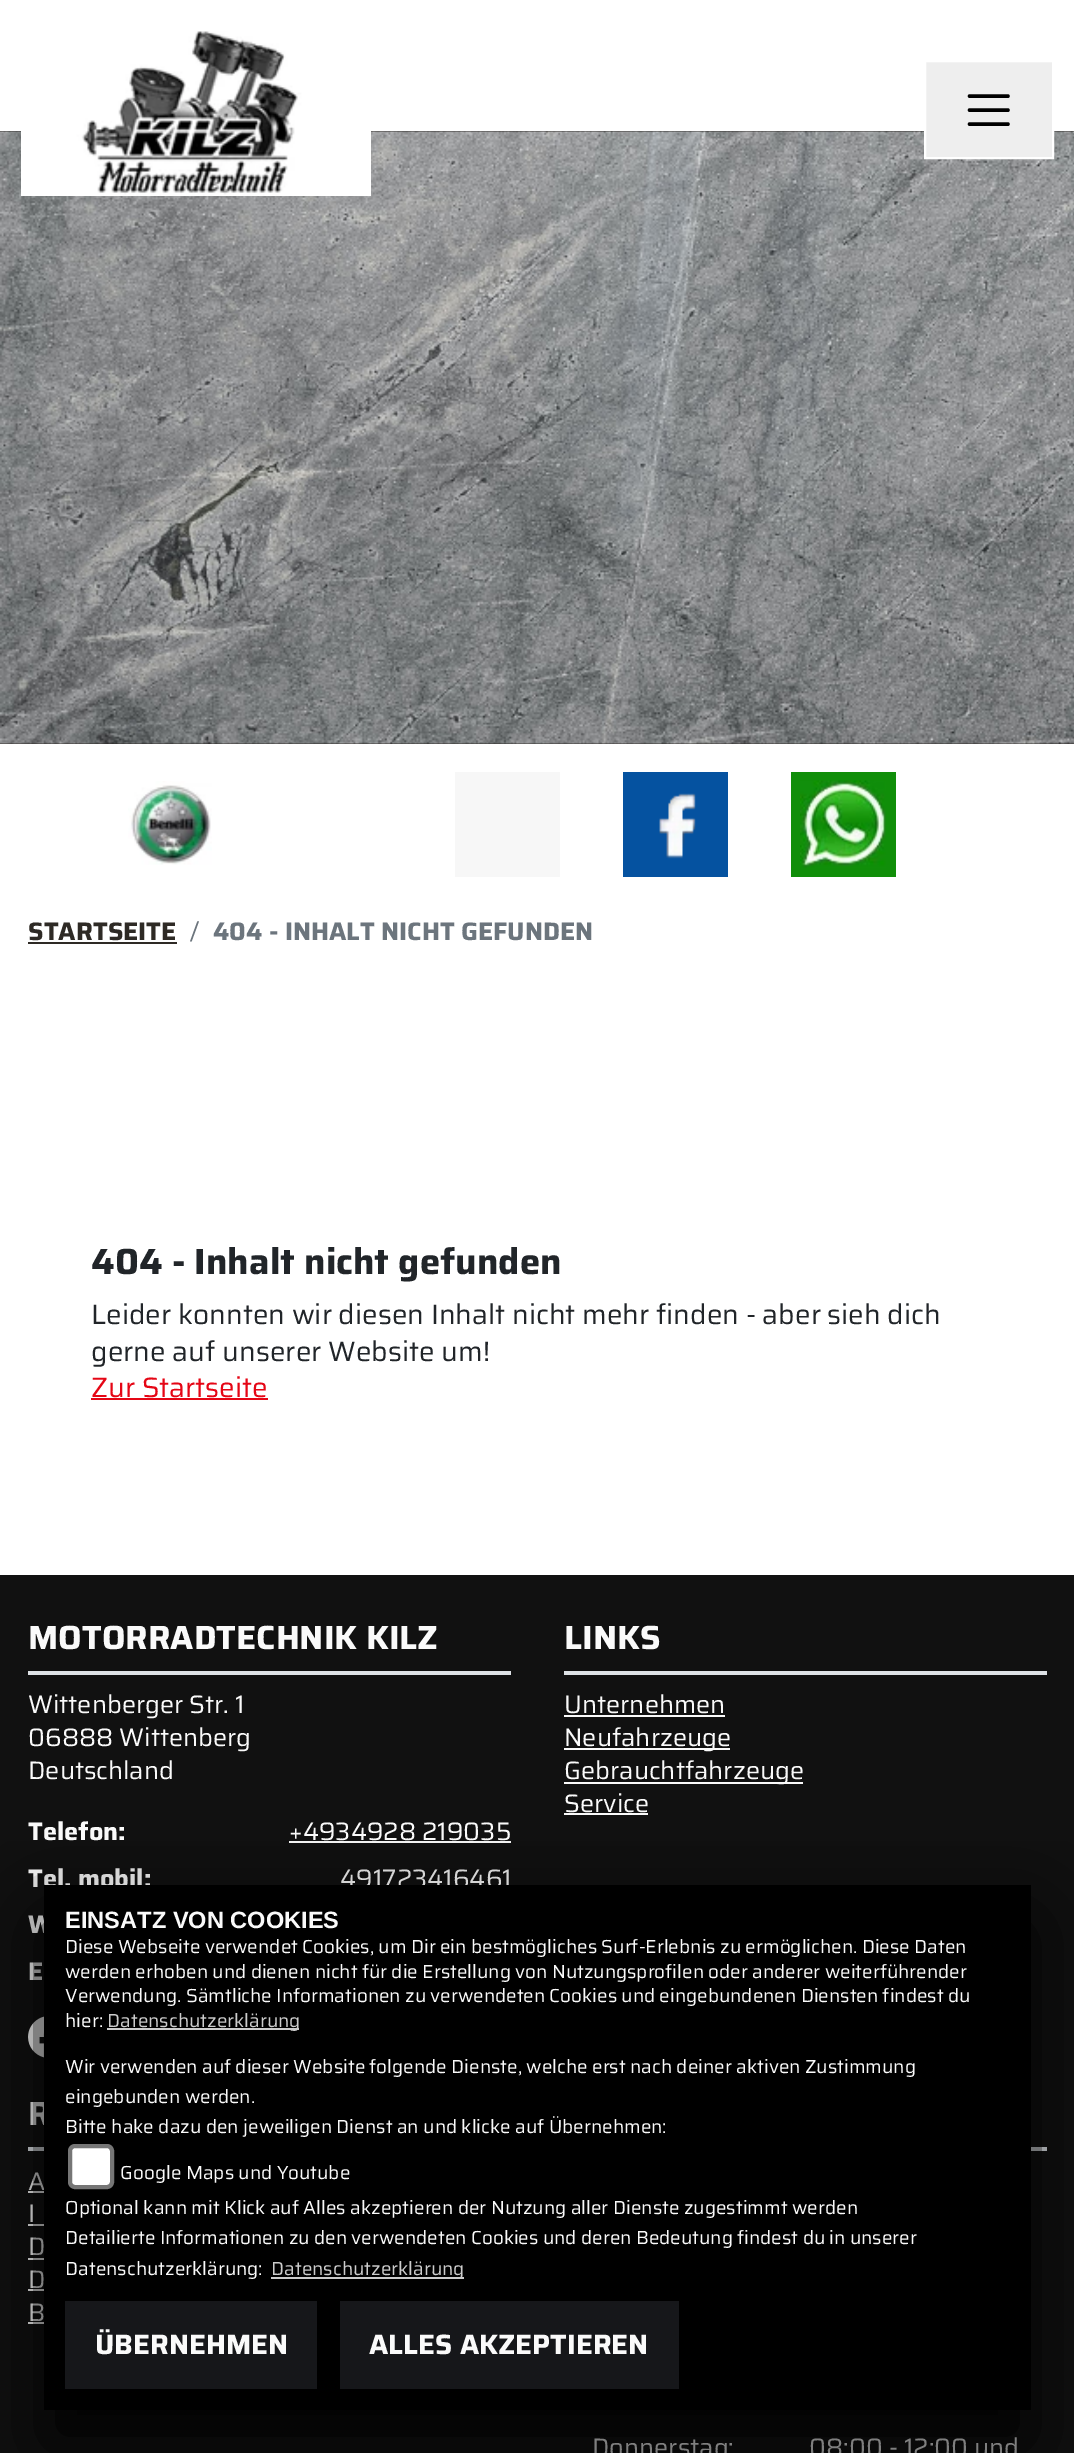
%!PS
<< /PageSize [1074 2453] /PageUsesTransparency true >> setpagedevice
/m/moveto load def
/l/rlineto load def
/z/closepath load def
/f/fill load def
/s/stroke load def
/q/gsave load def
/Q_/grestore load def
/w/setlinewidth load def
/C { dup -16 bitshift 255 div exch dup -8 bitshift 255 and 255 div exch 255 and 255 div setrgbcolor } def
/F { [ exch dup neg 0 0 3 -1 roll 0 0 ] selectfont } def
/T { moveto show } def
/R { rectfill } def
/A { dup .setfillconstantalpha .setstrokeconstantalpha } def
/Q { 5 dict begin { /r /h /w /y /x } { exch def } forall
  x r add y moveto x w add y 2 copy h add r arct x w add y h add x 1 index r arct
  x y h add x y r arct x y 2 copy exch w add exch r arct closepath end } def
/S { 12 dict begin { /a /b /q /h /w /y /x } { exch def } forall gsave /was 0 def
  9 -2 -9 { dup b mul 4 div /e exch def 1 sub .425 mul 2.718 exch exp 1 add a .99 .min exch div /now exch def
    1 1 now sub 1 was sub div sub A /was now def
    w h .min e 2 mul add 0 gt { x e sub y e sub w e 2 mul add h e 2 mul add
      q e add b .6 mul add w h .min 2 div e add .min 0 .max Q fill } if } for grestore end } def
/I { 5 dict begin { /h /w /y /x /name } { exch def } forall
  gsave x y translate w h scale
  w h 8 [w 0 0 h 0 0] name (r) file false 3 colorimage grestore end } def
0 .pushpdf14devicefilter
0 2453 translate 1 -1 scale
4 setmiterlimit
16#FFFFFF C
0 0 1074 2453 R
16#2D2926 C
0 131 1074 613 R
(2.rgb) 0 131 1074 613 I
(1.rgb) 21 31 350 165 I
16#EEEEEE C
925 61 m 128 0 l 0 97 l -128 0 l z q f Q_
16#FFFFFF C
2 w
s
16#000000 C
3.5 w
1 setlinecap
969.5 96 m 38.5 0 l 969.5 110 m 38.5 0 l 969.5 124 m 38.5 0 l s
(3.rgb) 128 781 84 84 I
16#F7F7F7 C
455 772 105 105 R
16#0552A0 C
623 772 105 105 R
(4.rgb) 659 793 37 66 I
16#108E09 C
791 772 105 105 R
(5.rgb) 800 780 86 88 I
/Saira-Bold 25.25 F
16#2E2A25 C
(STARTSEITE) 28 940 T
28 942 149 2 R
/Saira-Regular 25.25 F
16#6C757D C
(/) 190 940 T
/Saira-Bold 25.25 F
(404 - INHALT NICHT GEFUNDEN) 213 940 T
/Saira-Bold 36.4 F
16#212529 C
(404 - Inhalt nicht gefunden) 91 1274 T
/Saira-Regular 28 F
(Leider konnten wir diesen Inhalt nicht mehr finden - aber sieh dich) 91 1324 T
(gerne auf unserer Website um!) 91 1361 T
16#E50615 C
(Zur Startseite) 91 1397 T
91 1398 177 2 R
16#111111 C
0 1575 1074 878 R
/Saira-Bold 33.6 F
16#FAFAFA C
(MOTORRADTECHNIK KILZ) 28 1649 T
16#DEE2E6 C
28 1671 483 4 R
/Saira-Regular 25.25 F
16#FAFAFA C
(Wittenberger Str. 1) 28 1713 T
(06888 Wittenberg) 28 1746 T
(Deutschland) 28 1779 T
/Saira-Bold 25.25 F
(Telefon:) 28 1840 T
/Saira-Regular 25.25 F
(+4934928 219035) 289 1840 T
289 1841 222 2 R
/Saira-Bold 25.25 F
(Tel. mobil:) 28 1887 T
/Saira-Regular 25.25 F
(491723416461) 340 1887 T
/Saira-Bold 25.25 F
(W) 28 1933 T
(E) 28 1980 T
(6.rgb) 28 2016 16 42 I
/Saira-Bold 33.6 F
(LINKS) 564 1649 T
16#DEE2E6 C
564 1671 483 4 R
/Saira-Regular 25.25 F
16#FAFAFA C
(Unternehmen) 564 1713 T
564 1715 161 2 R
564 1748 166 2 R
(Neufahrzeuge) 564 1746 T
564 1782 239 2 R
(Gebrauchtfahrzeuge) 564 1779 T
(Service) 564 1812 T
564 1813 84 2 R
/Saira-Bold 33.6 F
(R) 28 2125 T
16#DEE2E6 C
28 2147 16 4 R
/Saira-Regular 25.25 F
16#FAFAFA C
(A) 28 2190 T
28 2191 16 2 R
(I) 28 2222 T
28 2224 16 2 R
(D) 28 2255 T
28 2258 16 2 R
(D) 28 2288 T
28 2289 16 2 R
(B) 28 2321 T
28 2322 16 2 R
16#DEE2E6 C
1031 2147 16 4 R
16#FAFAFA C
(Donnerstag:) 592 2456 T
(08:00 - 12:00 und) 809 2456 T
q
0 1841 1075 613 rectclip
16#000000 C
44 1923 987 525 0 44 1 S
Q_
16#000000 C
44 1885 987 525 R
/LiberationSans-Bold 23.6 F
16#FAFAFA C
(EINSATZ VON COOKIES) 65 1928 T
/Saira-Regular 18.9 F
65 1953 m -.1 0 32 (Diese Webseite verwendet Cookies, um Dir ein bestmögliches Surf-Erlebnis zu ermöglichen. Diese Daten) widthshow
65 1978 m -.1 0 32 (werden erhoben und dienen nicht für die Erstellung von Nutzungsprofilen oder anderer weiterführender) widthshow
65 2002 m -.25 0 32 (Verwendung. Sämtliche Informationen zu verwendeten Cookies und eingebundenen Diensten findest du) widthshow
(hier:) 65 2027 T
16#CCCCCC C
107 2028 192 2 R
(Datenschutzerklärung) 107 2027 T
16#FAFAFA C
65 2073 m -.1 0 32 (Wir verwenden auf dieser Website folgende Dienste, welche erst nach deiner aktiven Zustimmung) widthshow
(eingebunden werden.) 65 2103 T
(Bitte hake dazu den jeweiligen Dienst an und klicke auf Übernehmen:) 65 2133 T
16#FFFFFF C
70 2146 42 41 5 Q q f Q_
16#767676 C
4 w
0 setlinecap
s
16#FAFAFA C
(Google Maps und Youtube) 120 2179 T
(Optional kann mit Klick auf Alles akzeptieren der Nutzung aller Dienste zugestimmt werden) 65 2214 T
65 2244 m -.1 0 32 (Detailierte Informationen zu den verwendeten Cookies und deren Bedeutung findest du in unserer) widthshow
(Datenschutzerklärung:) 65 2275 T
16#CCCCCC C
271 2277 193 2 R
(Datenschutzerklärung) 271 2275 T
16#16171A C
65 2301 252 88 R
/Saira-Bold 28 F
16#FAFAFA C
(ÜBERNEHMEN) 95 2354 T
16#16171A C
340 2301 339 88 R
16#FAFAFA C
(ALLES AKZEPTIEREN) 369 2354 T
.poppdf14devicefilter showpage
